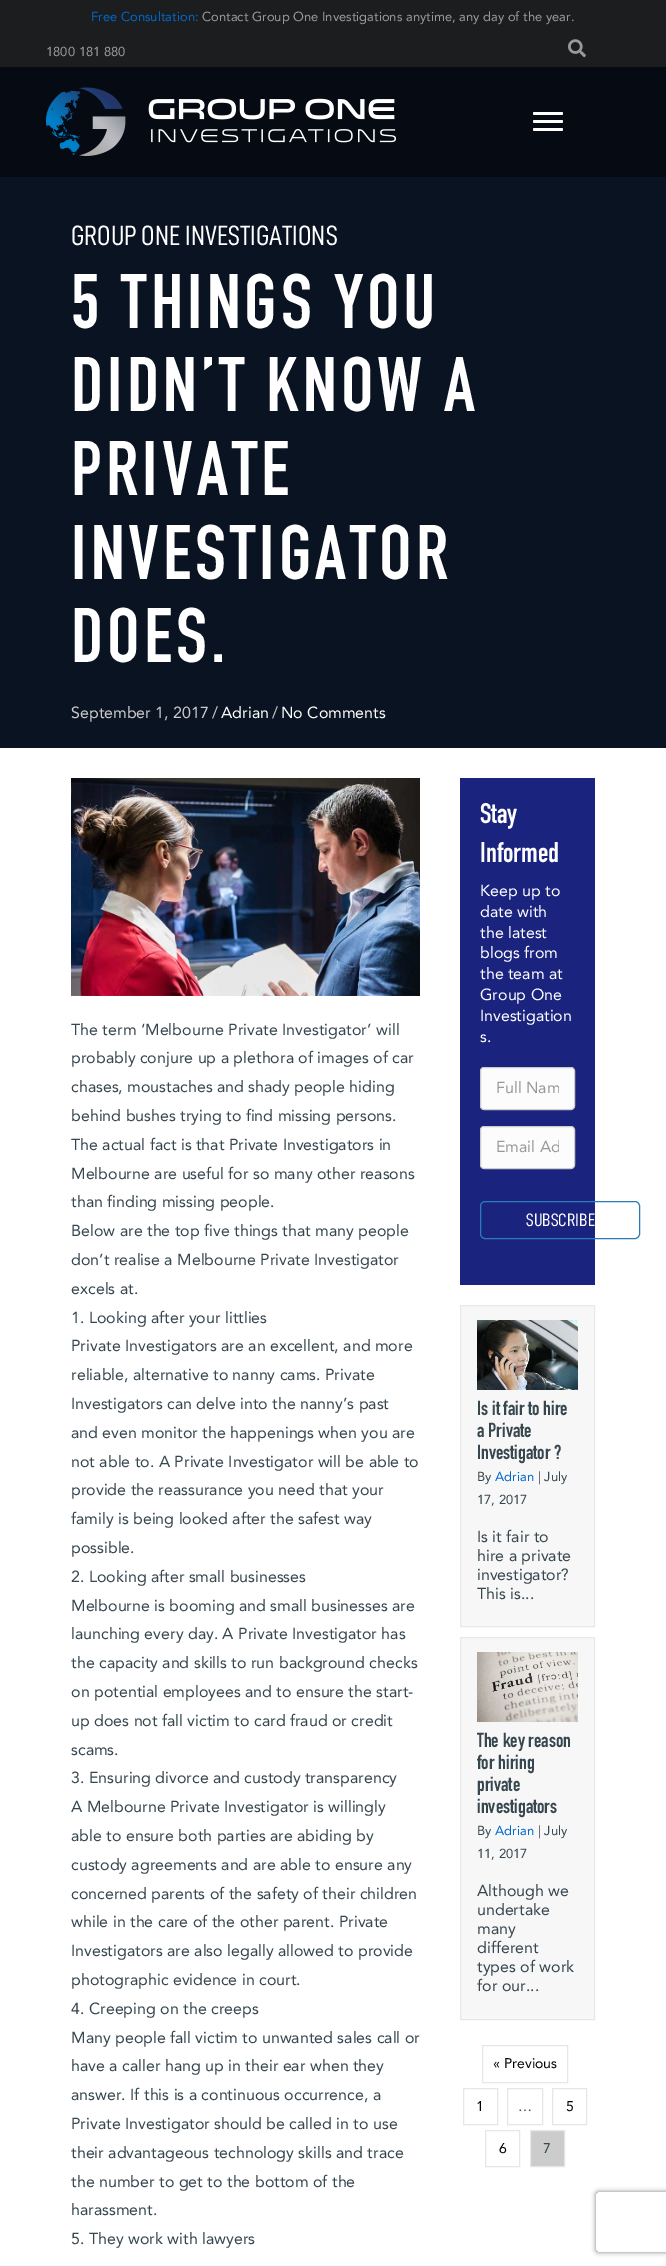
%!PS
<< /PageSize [666 2266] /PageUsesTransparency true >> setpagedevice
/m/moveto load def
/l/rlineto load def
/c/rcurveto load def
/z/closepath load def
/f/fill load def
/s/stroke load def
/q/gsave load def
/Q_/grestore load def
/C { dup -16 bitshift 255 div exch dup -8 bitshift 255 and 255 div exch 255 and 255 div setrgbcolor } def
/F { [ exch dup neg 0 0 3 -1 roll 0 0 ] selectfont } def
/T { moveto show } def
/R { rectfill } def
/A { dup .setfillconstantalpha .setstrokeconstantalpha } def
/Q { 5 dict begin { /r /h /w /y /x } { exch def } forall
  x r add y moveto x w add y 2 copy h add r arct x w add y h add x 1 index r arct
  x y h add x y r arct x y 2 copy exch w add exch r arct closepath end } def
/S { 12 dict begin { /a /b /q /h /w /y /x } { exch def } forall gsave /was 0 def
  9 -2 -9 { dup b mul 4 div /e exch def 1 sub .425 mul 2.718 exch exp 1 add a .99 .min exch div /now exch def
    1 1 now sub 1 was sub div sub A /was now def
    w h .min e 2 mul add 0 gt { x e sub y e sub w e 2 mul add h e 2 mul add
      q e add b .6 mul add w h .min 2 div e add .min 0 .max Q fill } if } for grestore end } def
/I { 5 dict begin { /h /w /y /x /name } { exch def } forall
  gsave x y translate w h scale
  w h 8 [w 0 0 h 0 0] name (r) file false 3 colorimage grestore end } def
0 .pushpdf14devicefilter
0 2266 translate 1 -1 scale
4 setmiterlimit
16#FFFFFF C
0 0 666 2266 R
16#1C1D1F C
0 0 666 67 R
/Avenir-Regular 13 F
16#0066CC C
(Free Consultation:) 91 21 T
16#999999 C
(Contact Group One Investigations anytime, any day of the year.) 202 21 T
(1800 181 880) 46 56 T
(1.rgb) 568 39 18 19 I
16#060A13 C
0 67 666 110 R
(2.rgb) 46 87 350 69 I
16#FFFFFF C
533 120 30 3 1.5 Q f
533 112 30 3 1.5 Q f
533 128 30 3 1.5 Q f
16#0A1322 C
0 177 666 571 R
/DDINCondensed-Regular 28 F
16#FFFFFF C
(GROUP ONE INVESTIGATIONS) 71 245 T
/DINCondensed-Bold 76 F
71 328 m 4 0 (5 THINGS YOU) ashow
71 411 m 4 0 (DIDN’T KNOW A) ashow
71 495 m 4 0 (PRIVATE) ashow
71 579 m 4 0 (INVESTIGATOR) ashow
71 662 m 4 0 (DOES.) ashow
/Avenir-Regular 16 F
16#CCCCCC C
(September 1, 2017) 71 718 T
(/) 212 718 T
16#FFFFFF C
(Adrian) 221 718 T
16#CCCCCC C
(/) 272 718 T
16#FFFFFF C
(No Comments) 281 718 T
(3.rgb) 71 778 349 218 I
16#37474F C
(The term ‘Melbourne Private Investigator’ will) 71 1035 T
(probably conjure up a plethora of images of car) 71 1063 T
(chases, moustaches and shady people hiding) 71 1092 T
(behind bushes trying to find missing persons.) 71 1121 T
(The actual fact is that Private Investigators in) 71 1150 T
(Melbourne are useful for so many other reasons) 71 1179 T
(than finding missing people.) 71 1207 T
(Below are the top five things that many people) 71 1236 T
(don’t realise a Melbourne Private Investigator) 71 1265 T
(excels at.) 71 1294 T
(1. Looking after your littlies) 71 1323 T
(Private Investigators are an excellent, and more) 71 1351 T
(reliable, alternative to nanny cams. Private) 71 1380 T
(Investigators can delve into the nanny’s past) 71 1409 T
(and even monitor the happenings when you are) 71 1438 T
(not able to. A Private Investigator will be able to) 71 1467 T
(provide the reassurance you need that your) 71 1495 T
(family is being looked after the safest way) 71 1524 T
(possible.) 71 1553 T
(2. Looking after small businesses) 71 1582 T
(Melbourne is booming and small businesses are) 71 1611 T
(launching every day. A Private Investigator has) 71 1639 T
(the capacity and skills to run background checks) 71 1668 T
(on potential employees and to ensure the start-) 71 1697 T
(up does not fall victim to card fraud or credit) 71 1726 T
(scams.) 71 1755 T
(3. Ensuring divorce and custody transparency) 71 1783 T
(A Melbourne Private Investigator is willingly) 71 1812 T
(able to ensure both parties are abiding by) 71 1841 T
(custody agreements and are able to ensure any) 71 1870 T
(concerned parents of the safety of their children) 71 1899 T
(while in the care of the other parent. Private) 71 1927 T
(Investigators are also legally allowed to provide) 71 1956 T
(photographic evidence in court.) 71 1985 T
(4. Creeping on the creeps) 71 2014 T
(Many people fall victim to unwanted sales call or) 71 2043 T
(have a caller hang up in their ear when they) 71 2071 T
(answer. If this is a continuous occurrence, a) 71 2100 T
(Private Investigator should be called in to use) 71 2129 T
(their advantageous technology skills and trace) 71 2158 T
(the number to get to the bottom of the) 71 2187 T
(harassment.) 71 2215 T
(5. They work with lawyers) 71 2244 T
16#1A237E C
460 778 135 507 R
/DINCondensed-Bold 28 F
16#FFFFFF C
(Stay) 480 823 T
(Informed) 480 862 T
/Avenir-Regular 16 F
(Keep up to) 480 896 T
(date with) 480 917 T
(the latest) 480 938 T
(blogs from) 480 958 T
(the team at) 480 979 T
(Group One) 480 1000 T
(Investigation) 480 1021 T
(s.) 480 1042 T
16#FCFCFC C
480.5 1067.5 94 42 3.5 Q q f Q_
16#CCCCCC C
s
q
496 1077 63 22 rectclip
16#999999 C
(Full Nam) 496 1093 T
Q_
16#FCFCFC C
480.5 1126.5 94 42 3.5 Q q f Q_
16#CCCCCC C
s
q
496 1136 63 22 rectclip
16#999999 C
(Email Ad) 496 1152 T
Q_
q
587 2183 m 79 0 l 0 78 l -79 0 l z 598 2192 m 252 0 l 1 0 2 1 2 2 c 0 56 l 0 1 -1 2 -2 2 c -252 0 l -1 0 -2 -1 -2 -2 c 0 -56 l 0 -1 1 -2 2 -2 c z eoclip newpath
16#808080 C
596 2192 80 60 2 2.5 1 S
Q_
16#2B7BB9 C
480.5 1201.5 159 37 4.5 Q s
/DDINCondensed-Regular 18 F
16#FFFFFF C
(SUBSCRIBE) 526 1226 T
16#F7F7F7 C
460.5 1305.5 m 134 0 l 0 321 l -134 0 l z q f Q_
16#E8E8E8 C
s
(4.rgb) 477 1320 101 70 I
/DINCondensed-Bold 20 F
16#37474F C
(Is it fair to hire) 477 1415 T
(a Private) 477 1437 T
(Investigator ?) 477 1459 T
/Avenir-Regular 13 F
(By) 477 1481 T
16#0066CC C
(Adrian) 495 1481 T
16#37474F C
(| July) 538 1481 T
(17, 2017) 477 1504 T
/Avenir-Regular 16 F
(Is it fair to) 477 1542 T
(hire a private) 477 1561 T
(investigator?) 477 1580 T
(This is...) 477 1599 T
16#F7F7F7 C
460.5 1637.5 m 134 0 l 0 382 l -134 0 l z q f Q_
16#E8E8E8 C
s
(5.rgb) 477 1652 101 70 I
/DINCondensed-Bold 20 F
16#37474F C
(The key reason) 477 1747 T
(for hiring) 477 1769 T
(private) 477 1791 T
(investigators) 477 1813 T
/Avenir-Regular 13 F
(By) 477 1835 T
16#0066CC C
(Adrian) 495 1835 T
16#37474F C
(| July) 538 1835 T
(11, 2017) 477 1858 T
/Avenir-Regular 16 F
(Although we) 477 1896 T
(undertake) 477 1915 T
(many) 477 1934 T
(different) 477 1953 T
(types of work) 477 1972 T
(for our...) 477 1991 T
16#E6E6E6 C
482.5 2045.5 85 37 rectstroke
/Avenir-Regular 14 F
16#000000 C
(« Previous) 493 2068 T
16#E6E6E6 C
463.5 2088.5 34 36 rectstroke
16#000000 C
(1) 476 2111 T
16#E6E6E6 C
507.5 2088.5 35 36 rectstroke
16#37474F C
(…) 518 2111 T
16#E6E6E6 C
552.5 2088.5 34 36 rectstroke
16#000000 C
(5) 566 2111 T
16#E6E6E6 C
485.5 2130.5 34 36 rectstroke
16#000000 C
(6) 499 2153 T
16#CCCCCC C
530.5 2130.5 m 34 0 l 0 36 l -34 0 l z q f Q_
16#E6E6E6 C
s
16#37474F C
(7) 543 2153 T
.poppdf14devicefilter showpage
